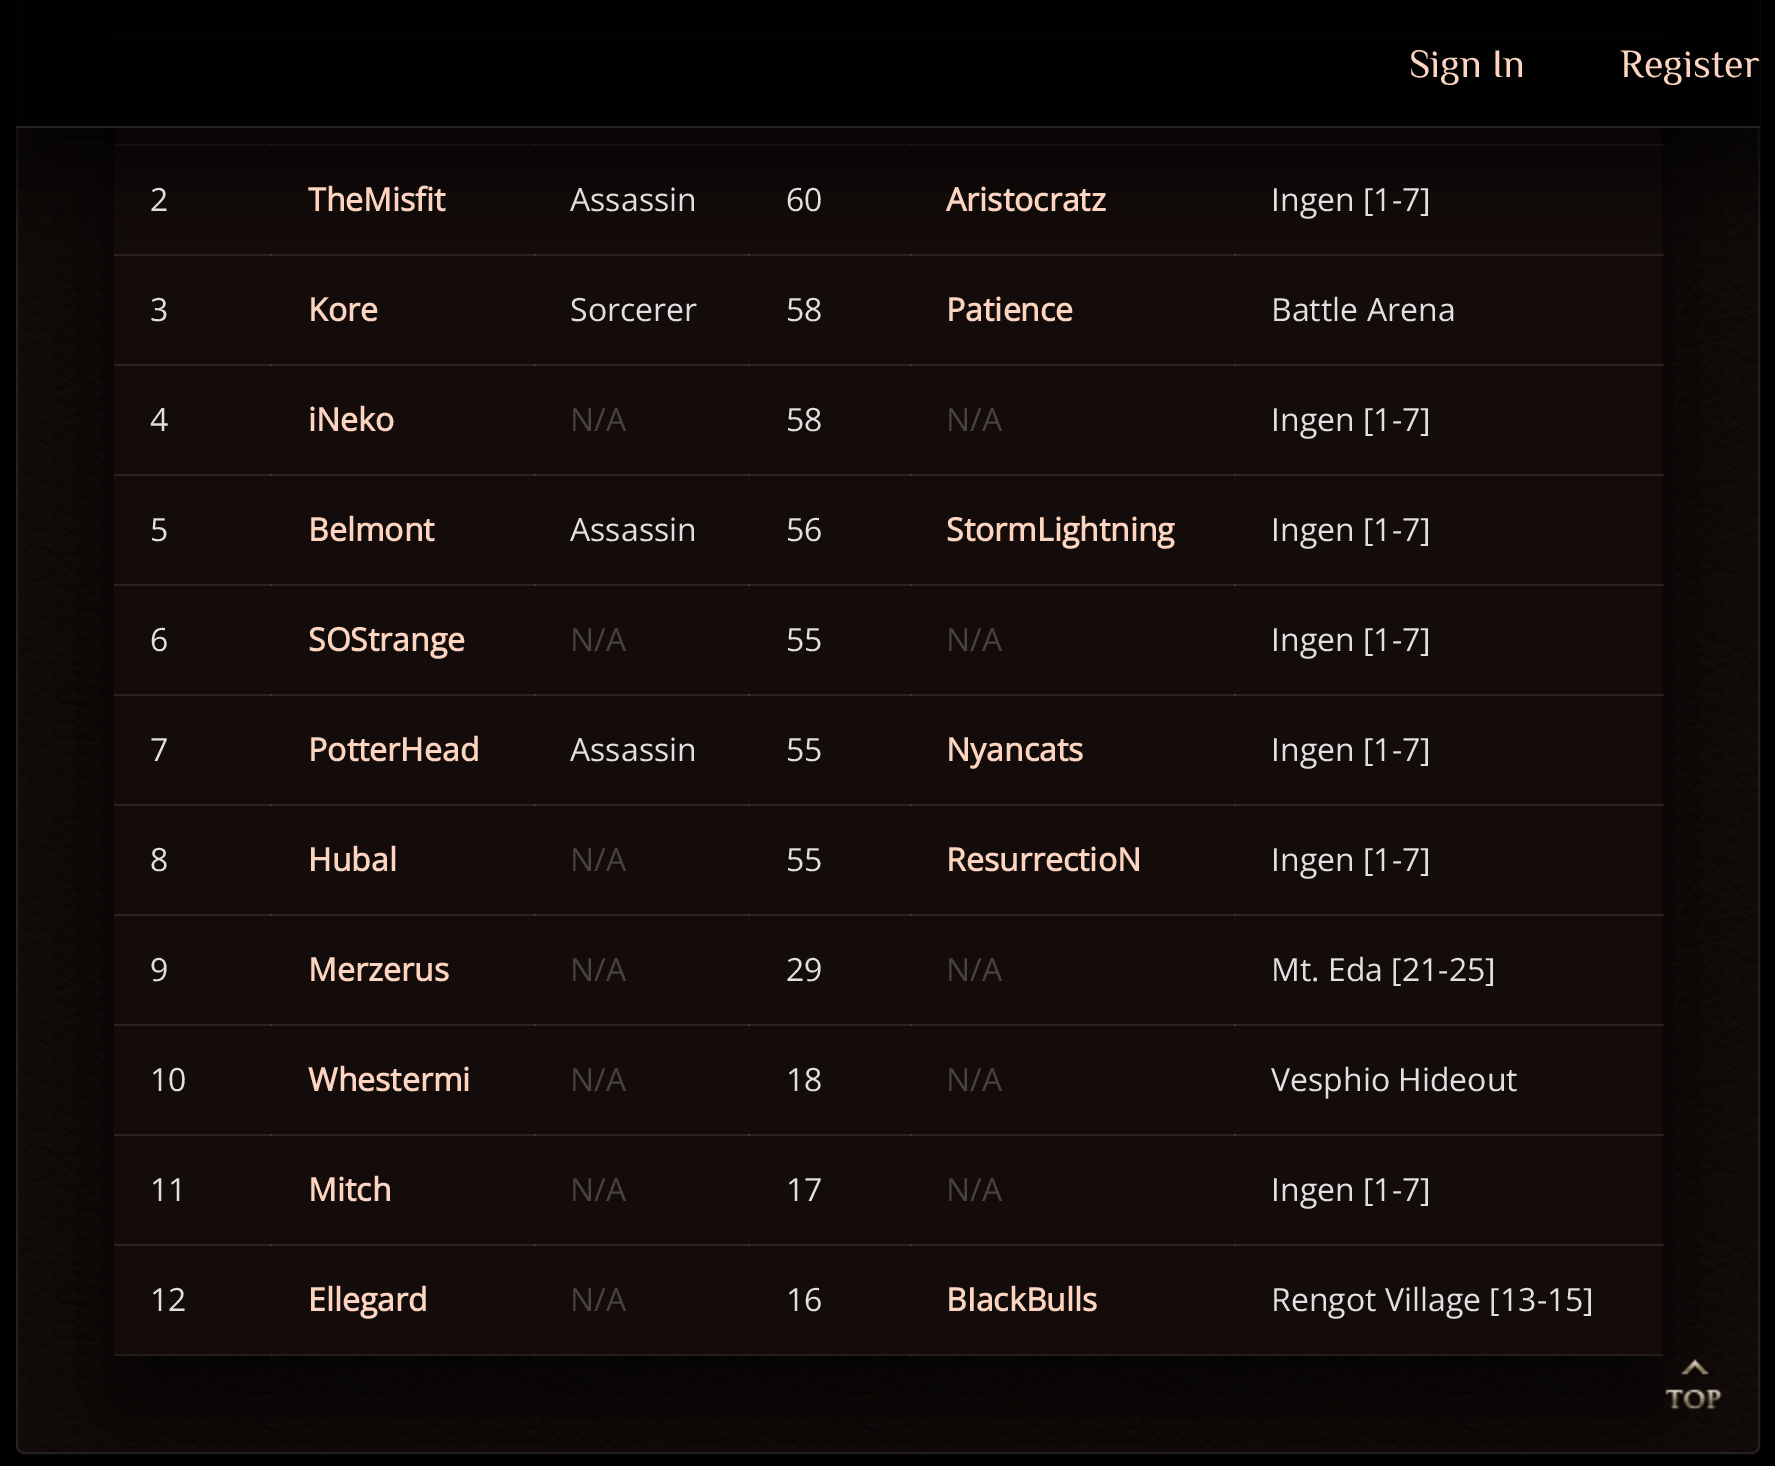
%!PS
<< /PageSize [1775 1466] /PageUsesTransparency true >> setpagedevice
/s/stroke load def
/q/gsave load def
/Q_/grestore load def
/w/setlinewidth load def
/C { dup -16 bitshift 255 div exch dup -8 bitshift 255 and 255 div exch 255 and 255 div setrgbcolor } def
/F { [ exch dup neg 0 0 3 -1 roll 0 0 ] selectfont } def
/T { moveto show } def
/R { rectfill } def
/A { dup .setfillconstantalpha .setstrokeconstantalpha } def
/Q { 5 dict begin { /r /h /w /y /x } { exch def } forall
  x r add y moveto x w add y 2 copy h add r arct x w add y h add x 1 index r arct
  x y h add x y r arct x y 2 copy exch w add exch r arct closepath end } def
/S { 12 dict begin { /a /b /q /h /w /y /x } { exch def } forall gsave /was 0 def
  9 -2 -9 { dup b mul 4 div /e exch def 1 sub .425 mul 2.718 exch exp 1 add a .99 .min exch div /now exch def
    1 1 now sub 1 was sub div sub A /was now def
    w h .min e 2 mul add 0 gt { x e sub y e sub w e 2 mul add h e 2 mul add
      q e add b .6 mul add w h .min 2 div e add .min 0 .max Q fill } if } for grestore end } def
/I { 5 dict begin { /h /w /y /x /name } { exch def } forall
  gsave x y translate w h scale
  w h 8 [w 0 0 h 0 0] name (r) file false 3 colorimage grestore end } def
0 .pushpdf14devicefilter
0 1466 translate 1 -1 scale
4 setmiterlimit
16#000000 C
0 0 1775 1466 R
(1.rgb) 16 0 1744 1454 I
16#222222 C
2 w
17 -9 1742 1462 7 Q s
16#000000 C
114 14 1548 1392 0 50 .75 S
16#180F0D C
114 0 1548 1356 R
16#140C0B C
114 34 1548 1320 R
0.05 A
16#FFFFFF C
1234 34 430 2 R
910 34 326 2 R
1234 34 430 2 R
748 34 164 2 R
910 34 326 2 R
534 34 216 2 R
748 34 164 2 R
270 34 266 2 R
534 34 216 2 R
114 34 158 2 R
270 34 266 2 R
114 34 158 2 R
1234 144 430 2 R
910 144 326 2 R
1234 144 430 2 R
748 144 164 2 R
910 144 326 2 R
534 144 216 2 R
748 144 164 2 R
270 144 266 2 R
534 144 216 2 R
114 144 158 2 R
270 144 266 2 R
114 144 158 2 R
1234 254 430 2 R
910 254 326 2 R
1234 254 430 2 R
748 254 164 2 R
910 254 326 2 R
534 254 216 2 R
748 254 164 2 R
270 254 266 2 R
534 254 216 2 R
114 254 158 2 R
270 254 266 2 R
114 254 158 2 R
q
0 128 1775 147 rectclip
1 A
16#000000 C
0 50 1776 128 0 50 .75 S
Q_
0.9 A
16#000000 C
16 0 1744 128 R
1 A
16#222222 C
16 126 1744 2 R
/Philosopher-Regular 40 F
16#FCD4C0 C
(Sign In) 1409 77 T
(Register) 1620 77 T
/OpenSans-Regular 32 F
16#E0E0E0 C
(2) 150 211 T
/OpenSans-Bold 32 F
16#FCD4C0 C
(TheMisfit) 308 211 T
/OpenSans-Regular 32 F
16#E0E0E0 C
(Assassin) 570 211 T
(60) 786 211 T
/OpenSans-Bold 32 F
16#FCD4C0 C
(Aristocratz) 946 211 T
/OpenSans-Regular 32 F
16#E0E0E0 C
(Ingen [1-7]) 1271 211 T
0.05 A
16#FFFFFF C
1234 364 430 2 R
910 364 326 2 R
1234 364 430 2 R
748 364 164 2 R
910 364 326 2 R
534 364 216 2 R
748 364 164 2 R
270 364 266 2 R
534 364 216 2 R
114 364 158 2 R
270 364 266 2 R
114 364 158 2 R
1 A
16#E0E0E0 C
(3) 150 321 T
/OpenSans-Bold 32 F
16#FCD4C0 C
(Kore) 308 321 T
/OpenSans-Regular 32 F
16#E0E0E0 C
(Sorcerer) 570 321 T
(58) 786 321 T
/OpenSans-Bold 32 F
16#FCD4C0 C
(Patience) 946 321 T
/OpenSans-Regular 32 F
16#E0E0E0 C
(Battle Arena) 1271 321 T
0.05 A
16#FFFFFF C
1234 474 430 2 R
910 474 326 2 R
1234 474 430 2 R
748 474 164 2 R
910 474 326 2 R
534 474 216 2 R
748 474 164 2 R
270 474 266 2 R
534 474 216 2 R
114 474 158 2 R
270 474 266 2 R
114 474 158 2 R
1 A
16#E0E0E0 C
(4) 150 431 T
/OpenSans-Bold 32 F
16#FCD4C0 C
(iNeko) 308 431 T
/OpenSans-Regular 32 F
16#474140 C
(N/A) 570 431 T
16#E0E0E0 C
(58) 786 431 T
16#474140 C
(N/A) 946 431 T
16#E0E0E0 C
(Ingen [1-7]) 1271 431 T
0.05 A
16#FFFFFF C
1234 584 430 2 R
910 584 326 2 R
1234 584 430 2 R
748 584 164 2 R
910 584 326 2 R
534 584 216 2 R
748 584 164 2 R
270 584 266 2 R
534 584 216 2 R
114 584 158 2 R
270 584 266 2 R
114 584 158 2 R
1 A
16#E0E0E0 C
(5) 150 541 T
/OpenSans-Bold 32 F
16#FCD4C0 C
(Belmont) 308 541 T
/OpenSans-Regular 32 F
16#E0E0E0 C
(Assassin) 570 541 T
(56) 786 541 T
/OpenSans-Bold 32 F
16#FCD4C0 C
(StormLightning) 946 541 T
/OpenSans-Regular 32 F
16#E0E0E0 C
(Ingen [1-7]) 1271 541 T
0.05 A
16#FFFFFF C
1234 694 430 2 R
910 694 326 2 R
1234 694 430 2 R
748 694 164 2 R
910 694 326 2 R
534 694 216 2 R
748 694 164 2 R
270 694 266 2 R
534 694 216 2 R
114 694 158 2 R
270 694 266 2 R
114 694 158 2 R
1 A
16#E0E0E0 C
(6) 150 651 T
/OpenSans-Bold 32 F
16#FCD4C0 C
(SOStrange) 308 651 T
/OpenSans-Regular 32 F
16#474140 C
(N/A) 570 651 T
16#E0E0E0 C
(55) 786 651 T
16#474140 C
(N/A) 946 651 T
16#E0E0E0 C
(Ingen [1-7]) 1271 651 T
0.05 A
16#FFFFFF C
1234 804 430 2 R
910 804 326 2 R
1234 804 430 2 R
748 804 164 2 R
910 804 326 2 R
534 804 216 2 R
748 804 164 2 R
270 804 266 2 R
534 804 216 2 R
114 804 158 2 R
270 804 266 2 R
114 804 158 2 R
1 A
16#E0E0E0 C
(7) 150 761 T
/OpenSans-Bold 32 F
16#FCD4C0 C
(PotterHead) 308 761 T
/OpenSans-Regular 32 F
16#E0E0E0 C
(Assassin) 570 761 T
(55) 786 761 T
/OpenSans-Bold 32 F
16#FCD4C0 C
(Nyancats) 946 761 T
/OpenSans-Regular 32 F
16#E0E0E0 C
(Ingen [1-7]) 1271 761 T
0.05 A
16#FFFFFF C
1234 914 430 2 R
910 914 326 2 R
1234 914 430 2 R
748 914 164 2 R
910 914 326 2 R
534 914 216 2 R
748 914 164 2 R
270 914 266 2 R
534 914 216 2 R
114 914 158 2 R
270 914 266 2 R
114 914 158 2 R
1 A
16#E0E0E0 C
(8) 150 871 T
/OpenSans-Bold 32 F
16#FCD4C0 C
(Hubal) 308 871 T
/OpenSans-Regular 32 F
16#474140 C
(N/A) 570 871 T
16#E0E0E0 C
(55) 786 871 T
/OpenSans-Bold 32 F
16#FCD4C0 C
(ResurrectioN) 946 871 T
/OpenSans-Regular 32 F
16#E0E0E0 C
(Ingen [1-7]) 1271 871 T
0.05 A
16#FFFFFF C
1234 1024 430 2 R
910 1024 326 2 R
1234 1024 430 2 R
748 1024 164 2 R
910 1024 326 2 R
534 1024 216 2 R
748 1024 164 2 R
270 1024 266 2 R
534 1024 216 2 R
114 1024 158 2 R
270 1024 266 2 R
114 1024 158 2 R
1 A
16#E0E0E0 C
(9) 150 981 T
/OpenSans-Bold 32 F
16#FCD4C0 C
(Merzerus) 308 981 T
/OpenSans-Regular 32 F
16#474140 C
(N/A) 570 981 T
16#E0E0E0 C
(29) 786 981 T
16#474140 C
(N/A) 946 981 T
16#E0E0E0 C
(Mt. Eda [21-25]) 1271 981 T
0.05 A
16#FFFFFF C
1234 1134 430 2 R
910 1134 326 2 R
1234 1134 430 2 R
748 1134 164 2 R
910 1134 326 2 R
534 1134 216 2 R
748 1134 164 2 R
270 1134 266 2 R
534 1134 216 2 R
114 1134 158 2 R
270 1134 266 2 R
114 1134 158 2 R
1 A
16#E0E0E0 C
(10) 150 1091 T
/OpenSans-Bold 32 F
16#FCD4C0 C
(Whestermi) 308 1091 T
/OpenSans-Regular 32 F
16#474140 C
(N/A) 570 1091 T
16#E0E0E0 C
(18) 786 1091 T
16#474140 C
(N/A) 946 1091 T
16#E0E0E0 C
(Vesphio Hideout) 1271 1091 T
0.05 A
16#FFFFFF C
1234 1244 430 2 R
910 1244 326 2 R
1234 1244 430 2 R
748 1244 164 2 R
910 1244 326 2 R
534 1244 216 2 R
748 1244 164 2 R
270 1244 266 2 R
534 1244 216 2 R
114 1244 158 2 R
270 1244 266 2 R
114 1244 158 2 R
1 A
16#E0E0E0 C
(11) 150 1201 T
/OpenSans-Bold 32 F
16#FCD4C0 C
(Mitch) 308 1201 T
/OpenSans-Regular 32 F
16#474140 C
(N/A) 570 1201 T
16#E0E0E0 C
(17) 786 1201 T
16#474140 C
(N/A) 946 1201 T
16#E0E0E0 C
(Ingen [1-7]) 1271 1201 T
0.05 A
16#FFFFFF C
1234 1354 430 2 R
910 1354 326 2 R
748 1354 164 2 R
534 1354 216 2 R
270 1354 266 2 R
114 1354 158 2 R
1 A
16#E0E0E0 C
(12) 150 1311 T
/OpenSans-Bold 32 F
16#FCD4C0 C
(Ellegard) 308 1311 T
/OpenSans-Regular 32 F
16#474140 C
(N/A) 570 1311 T
16#E0E0E0 C
(16) 786 1311 T
/OpenSans-Bold 32 F
16#FCD4C0 C
(BIackBulls) 946 1311 T
/OpenSans-Regular 32 F
16#E0E0E0 C
(Rengot Village [13-15]) 1271 1311 T
(2.rgb) 1665 1359 58 51 I
.poppdf14devicefilter showpage
